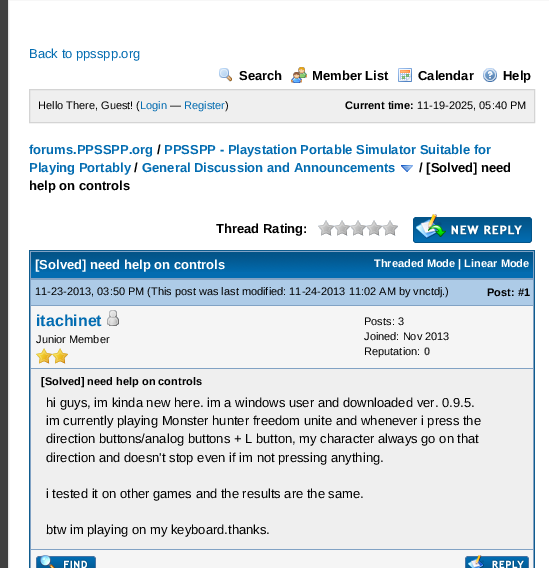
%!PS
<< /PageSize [549 568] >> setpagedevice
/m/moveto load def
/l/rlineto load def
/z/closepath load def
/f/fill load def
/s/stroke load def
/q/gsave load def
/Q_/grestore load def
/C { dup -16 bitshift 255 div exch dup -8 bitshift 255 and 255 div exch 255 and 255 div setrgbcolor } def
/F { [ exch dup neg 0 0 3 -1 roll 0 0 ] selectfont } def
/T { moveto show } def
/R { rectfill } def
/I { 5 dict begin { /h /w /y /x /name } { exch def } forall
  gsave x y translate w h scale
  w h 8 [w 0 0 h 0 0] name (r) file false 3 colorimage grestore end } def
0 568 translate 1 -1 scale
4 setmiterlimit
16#3F3F3F C
0 0 549 568 R
16#FFFFFF C
8.5 -.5 m 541 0 l 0 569 l -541 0 l z q f Q_
16#E4E4E4 C
s
/LiberationSans-Regular 13 F
16#026CB1 C
(Back to ppsspp.org) 29 58 T
(1.rgb) 219 68 13 14 I
/LiberationSans-Bold 13 F
16#000000 C
(Search) 239 80 T
(2.rgb) 291 67 16 16 I
(Member List) 312 80 T
(3.rgb) 398 68 14 14 I
(Calendar) 418 80 T
(4.rgb) 483 68 14 14 I
(Help) 503 80 T
16#EFEFEF C
29.5 89.5 m 505 0 l 0 33 l -505 0 l z q f Q_
16#D4D4D4 C
s
/LiberationSans-Regular 11 F
16#000000 C
(Hello There, Guest! \() 38 109 T
16#026CB1 C
(Login) 140 109 T
16#000000 C
(—) 170 109 T
16#026CB1 C
(Register) 184 109 T
16#000000 C
(\)) 225 109 T
/LiberationSans-Bold 11 F
(Current time:) 345 109 T
/LiberationSans-Regular 11 F
(11-19-2025, 05:40 PM) 417 109 T
/LiberationSans-Bold 13 F
16#026CB1 C
(forums.PPSSPP.org) 29 154 T
16#000000 C
(/) 157 154 T
16#026CB1 C
(PPSSPP - Playstation Portable Simulator Suitable for) 164 154 T
(Playing Portably) 29 172 T
16#000000 C
(/) 134 172 T
16#026CB1 C
(General Discussion and Announcements) 142 172 T
(5.rgb) 401 165 12 7 I
16#000000 C
(/ [Solved] need) 419 172 T
(help on controls) 29 190 T
(Thread Rating:) 216 233 T
(6.rgb) 318 220 80 16 I
(7.rgb) 413 214 119 29 I
16#81A2C4 C
30 251 504 317 R
16#0F5C8E C
29 250 506 1 R
534 250 1 318 R
29 250 1 318 R
16#026CB1 C
31 272 502 6 R
(8.rgb) 31 252 502 20 I
16#FFFFFF C
([Solved] need help on controls) 35 269 T
/LiberationSans-Bold 11 F
(Threaded Mode | Linear Mode) 374 267 T
16#ADCBE7 C
31 280 502 25 R
/LiberationSans-Regular 11 F
16#000000 C
(11-23-2013, 03:50 PM \(This post was last modified: 11-24-2013 11:02 AM by vnctdj.\)) 35 295 T
/LiberationSans-Bold 11 F
(Post: #1) 487 296 T
16#F5F5F5 C
31 306 502 62 R
/LiberationSans-Bold 16 F
16#026CB1 C
(itachinet) 36 326 T
(9.rgb) 107 310 12 16 I
/LiberationSans-Regular 11 F
16#000000 C
(Junior Member) 36 343 T
(10.rgb) 36 348 16 16 I
(10.rgb) 52 348 16 16 I
(Posts: 3) 364 325 T
(Joined: Nov 2013) 364 340 T
(Reputation:) 364 355 T
/LiberationSans-Bold 11 F
16#444444 C
(0) 424 355 T
16#EFEFEF C
31 369 502 180 R
16#000000 C
([Solved] need help on controls) 41 385 T
/LiberationSans-Regular 13 F
(hi guys, im kinda new here. im a windows user and downloaded ver. 0.9.5.) 46 407 T
(im currently playing Monster hunter freedom unite and whenever i press the) 46 425 T
(direction buttons/analog buttons + L button, my character always go on that) 46 443 T
(direction and doesn't stop even if im not pressing anything.) 46 462 T
(i tested it on other games and the results are the same.) 46 498 T
(btw im playing on my keyboard.thanks.) 46 534 T
16#F5F5F5 C
31 550 502 18 R
(11.rgb) 36 555 60 13 I
(12.rgb) 465 555 64 13 I
showpage
